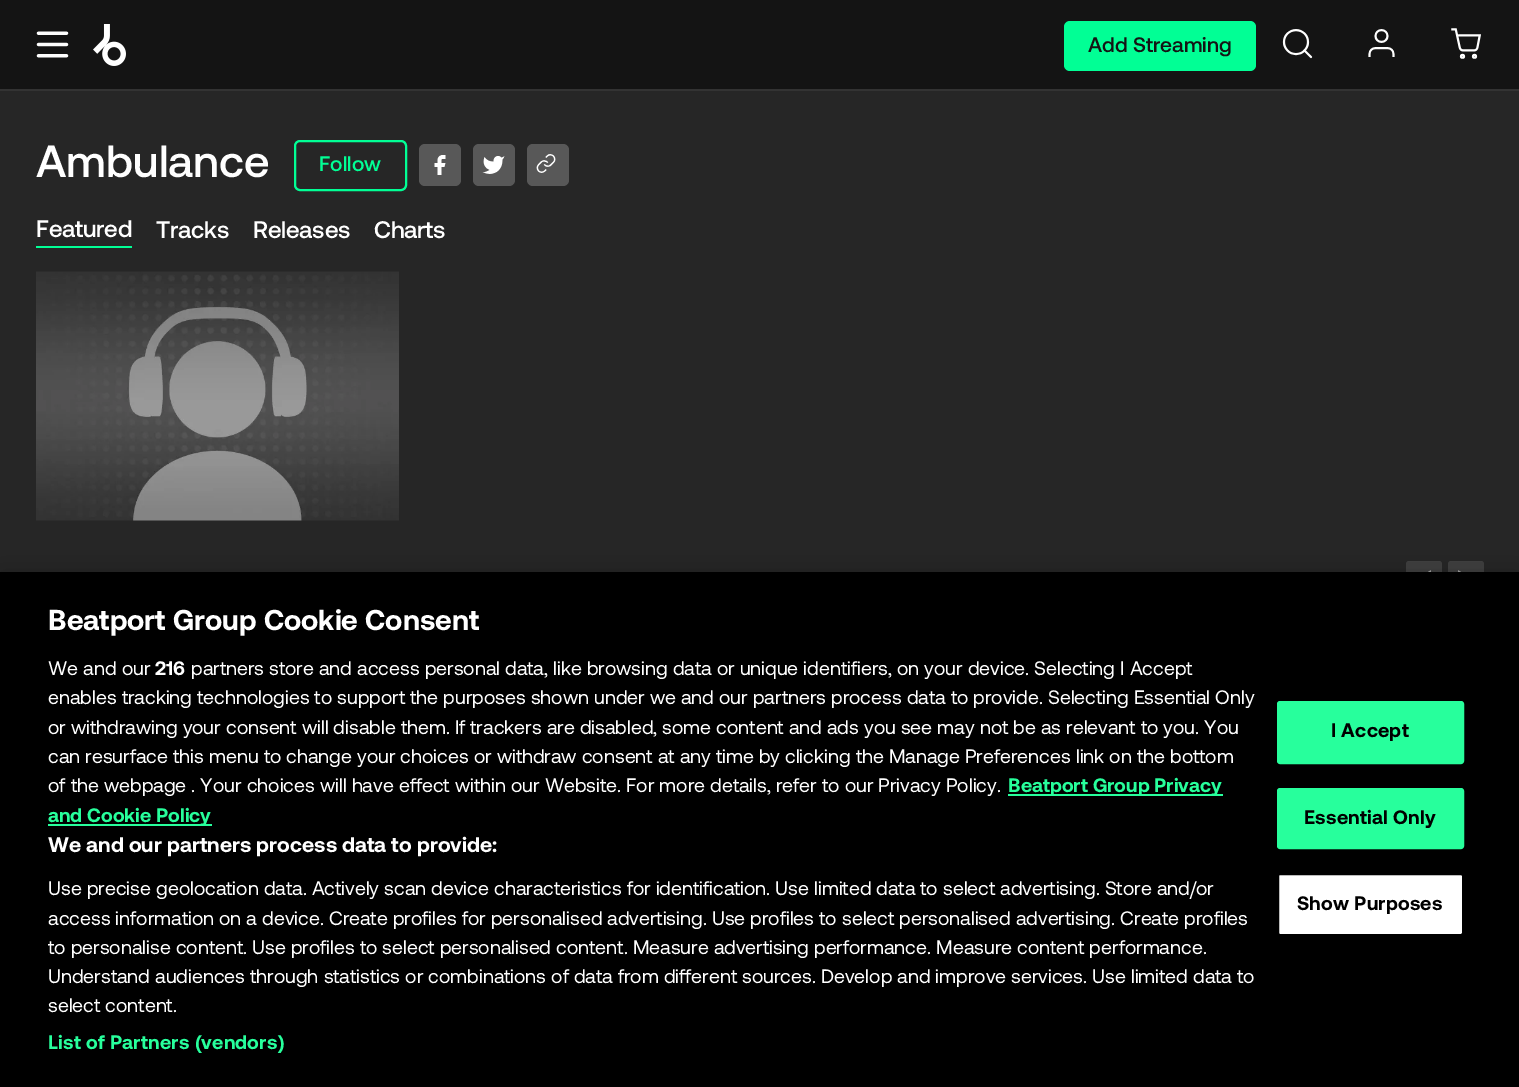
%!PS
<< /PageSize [1519 1087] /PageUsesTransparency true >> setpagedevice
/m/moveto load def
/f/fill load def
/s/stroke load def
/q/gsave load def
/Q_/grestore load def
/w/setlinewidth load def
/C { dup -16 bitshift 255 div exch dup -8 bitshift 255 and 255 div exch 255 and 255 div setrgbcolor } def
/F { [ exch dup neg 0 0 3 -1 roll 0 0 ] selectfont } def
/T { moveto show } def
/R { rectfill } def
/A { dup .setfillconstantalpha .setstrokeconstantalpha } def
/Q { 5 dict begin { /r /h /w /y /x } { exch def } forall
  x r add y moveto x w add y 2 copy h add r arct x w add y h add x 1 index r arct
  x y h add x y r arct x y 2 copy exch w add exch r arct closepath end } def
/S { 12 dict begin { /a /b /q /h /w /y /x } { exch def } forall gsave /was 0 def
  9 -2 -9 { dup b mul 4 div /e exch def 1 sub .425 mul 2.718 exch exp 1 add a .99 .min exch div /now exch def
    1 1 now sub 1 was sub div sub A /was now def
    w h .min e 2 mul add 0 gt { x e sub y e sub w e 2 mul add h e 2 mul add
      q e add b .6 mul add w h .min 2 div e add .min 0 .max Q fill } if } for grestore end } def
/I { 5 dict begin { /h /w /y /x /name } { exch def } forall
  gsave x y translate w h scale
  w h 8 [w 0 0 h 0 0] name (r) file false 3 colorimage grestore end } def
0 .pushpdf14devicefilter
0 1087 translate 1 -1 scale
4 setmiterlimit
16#262626 C
0 0 1519 1087 R
16#141414 C
0 0 1519 89 R
16#333333 C
0 89 1519 2 R
(1.rgb) 36 31 33 27 I
(2.rgb) 93 24 33 42 I
16#01FF95 C
1064 21 192 50 6 Q f
/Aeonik-Medium 21 F
16#141414 C
(Add Streaming) 1088 52 T
(3.rgb) 1282 29 31 30 I
(4.rgb) 1368 29 27 28 I
(5.rgb) 1451 28 30 31 I
/Aeonik-Medium 45 F
16#FFFFFF C
(Ambulance) 36 177 T
16#01FF95 C
2 w
295 141 111 49 5 Q s
/Aeonik-Medium 21 F
(Follow) 319 171 T
16#585858 C
419 144 42 42 6 Q f
(6.rgb) 434 155 12 20 I
473 144 42 42 6 Q f
(7.rgb) 482 156 23 18 I
527 144 42 42 6 Q f
(8.rgb) 536 154 20 19 I
16#01FF95 C
36 246 96 2 R
/Aeonik-Medium 24 F
16#FFFFFF C
36 237 m -.25 0 (Featured) ashow
156 238 m -.25 0 (Tracks) ashow
253 238 m -.25 0 (Releases) ashow
374 238 m -.25 0 (Charts) ashow
(9.rgb) 36 271 363 250 I
16#404040 C
1406 561 36 36 3 Q f
(10.rgb) 1428 570 3 2 I
1448 561 36 36 3 Q f
(11.rgb) 1458 570 3 2 I
16#000000 C
0 572 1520 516 0 13.5 .2 S
0 572 1519 515 R
/Aeonik-Bold 28.75 F
16#FFFFFF C
(Beatport Group Cookie Consent) 48 630 T
/Aeonik-Regular 19.5 F
(We and our) 48 675 T
/Aeonik-Bold 19.5 F
(216) 155 675 T
/Aeonik-Regular 19.5 F
(partners store and access personal data, like browsing data or unique identifiers, on your device. Selecting I Accept) 191 675 T
(enables tracking technologies to support the purposes shown under we and our partners process data to provide. Selecting Essential Only) 48 704 T
(or withdrawing your consent will disable them. If trackers are disabled, some content and ads you see may not be as relevant to you. You) 48 734 T
(can resurface this menu to change your choices or withdraw consent at any time by clicking the Manage Preferences link on the bottom) 48 763 T
(of the webpage . Your choices will have effect within our Website. For more details, refer to our Privacy Policy.) 48 792 T
16#27FF9C C
1008 794 215 2 R
/Aeonik-Bold 19.5 F
(Beatport Group Privacy) 1008 792 T
48 824 164 2 R
(and Cookie Policy) 48 822 T
/Aeonik-Bold 21.1 F
16#FFFFFF C
(We and our partners process data to provide:) 48 852 T
/Aeonik-Regular 19.5 F
(Use precise geolocation data. Actively scan device characteristics for identification. Use limited data to select advertising. Store and/or) 48 895 T
(access information on a device. Create profiles for personalised advertising. Use profiles to select personalised advertising. Create profiles) 48 925 T
(to personalise content. Use profiles to select personalised content. Measure advertising performance. Measure content performance.) 48 954 T
(Understand audiences through statistics or combinations of data from different sources. Develop and improve services. Use limited data to) 48 983 T
(select content.) 48 1012 T
/Aeonik-Bold 19.5 F
16#27FF9C C
48 1049 m .2 0 (List of Partners \(vendors\)) ashow
1278 702 185 61 2 Q q f Q_
s
16#000000 C
1331 737 m .2 0 (I Accept) ashow
16#27FF9C C
1278 789 185 59 2 Q q f Q_
s
16#000000 C
1304 824 m .2 0 (Essential Only) ashow
16#FFFFFF C
1278 874 185 61 2 Q q f Q_
16#000000 C
s
1297 910 m .2 0 (Show Purposes) ashow
.poppdf14devicefilter showpage
